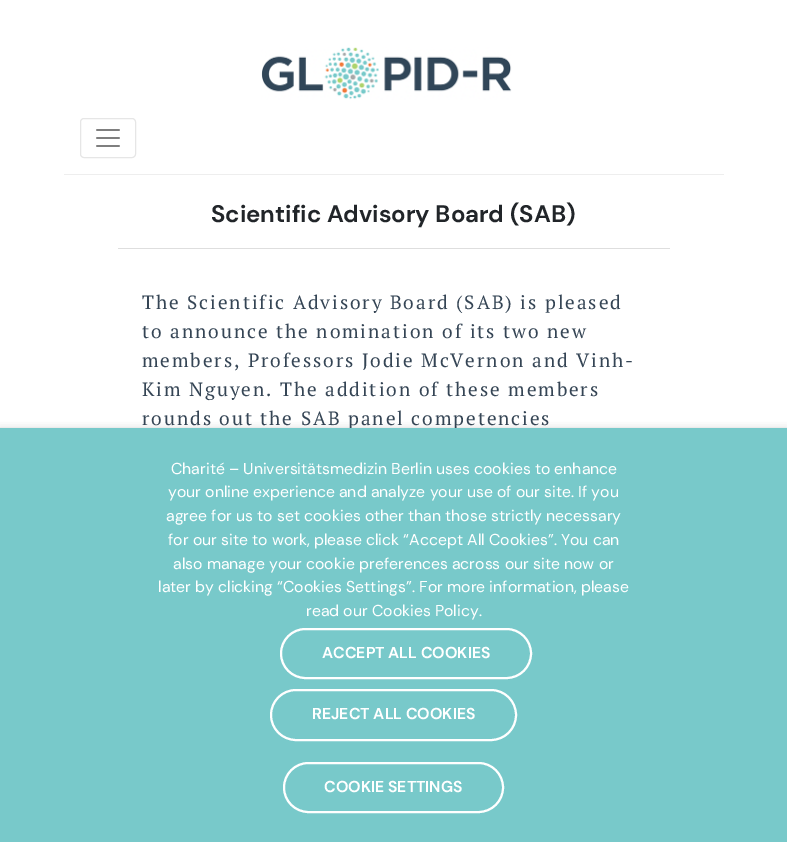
%!PS
<< /PageSize [787 842] /PageUsesTransparency true >> setpagedevice
/m/moveto load def
/s/stroke load def
/w/setlinewidth load def
/C { dup -16 bitshift 255 div exch dup -8 bitshift 255 and 255 div exch 255 and 255 div setrgbcolor } def
/F { [ exch dup neg 0 0 3 -1 roll 0 0 ] selectfont } def
/T { moveto show } def
/R { rectfill } def
/A { dup .setfillconstantalpha .setstrokeconstantalpha } def
/Q { 5 dict begin { /r /h /w /y /x } { exch def } forall
  x r add y moveto x w add y 2 copy h add r arct x w add y h add x 1 index r arct
  x y h add x y r arct x y 2 copy exch w add exch r arct closepath end } def
/S { 12 dict begin { /a /b /q /h /w /y /x } { exch def } forall gsave /was 0 def
  9 -2 -9 { dup b mul 4 div /e exch def 1 sub .425 mul 2.718 exch exp 1 add a .99 .min exch div /now exch def
    1 1 now sub 1 was sub div sub A /was now def
    w h .min e 2 mul add 0 gt { x e sub y e sub w e 2 mul add h e 2 mul add
      q e add b .6 mul add w h .min 2 div e add .min 0 .max Q fill } if } for grestore end } def
/I { 5 dict begin { /h /w /y /x /name } { exch def } forall
  gsave x y translate w h scale
  w h 8 [w 0 0 h 0 0] name (r) file false 3 colorimage grestore end } def
0 .pushpdf14devicefilter
0 842 translate 1 -1 scale
4 setmiterlimit
16#FFFFFF C
0 0 787 842 R
(1.rgb) 261 47 251 53 I
16#EEEEEE C
64 174 660 1 R
16#E6E6E6 C
80.5 118.5 55 39 3.5 Q s
(2.rgb) 96 129 24 18 I
16#DEDEDE C
118 248 552 1 R
/DMSans-Bold 24 F
16#212529 C
(Scientific Advisory Board \(SAB\)) 211 222 T
/PTSerif-Regular 19.2 F
16#354555 C
142 309 m 1.9 0 (The Scientific Advisory Board \(SAB\) is pleased) ashow
142 338 m 1.9 0 (to announce the nomination of its two new) ashow
142 367 m 1.9 0 (members, Professors Jodie McVernon and Vinh-) ashow
142 396 m 1.9 0 (Kim Nguyen. The addition of these members) ashow
142 425 m 1.9 0 (rounds out the SAB panel competencies) ashow
16#000000 C
0 433 787 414 0 5 .5 S
16#78C9CA C
0 428 787 414 R
/DMSans-Regular 15.85 F
16#FFFFFF C
(Charité – Universitätsmedizin Berlin uses cookies to enhance) 171 474 T
(your online experience and analyze your use of our site. If you) 168 497 T
(agree for us to set cookies other than those strictly necessary) 166 521 T
(for our site to work, please click “Accept All Cookies”. You can) 168 545 T
(also manage your cookie preferences across our site now or) 173 569 T
(later by clicking “Cookies Settings”. For more information, please) 158 592 T
(read our Cookies Policy.) 306 616 T
2 w
281 629 250 49 24.5 Q s
/DMSans-Bold 15.85 F
(ACCEPT ALL COOKIES) 322 658 T
271 690 245 50 25 Q s
(REJECT ALL COOKIES) 312 719 T
284 763 219 49 24.5 Q s
(COOKIE SETTINGS) 324 792 T
.poppdf14devicefilter showpage
